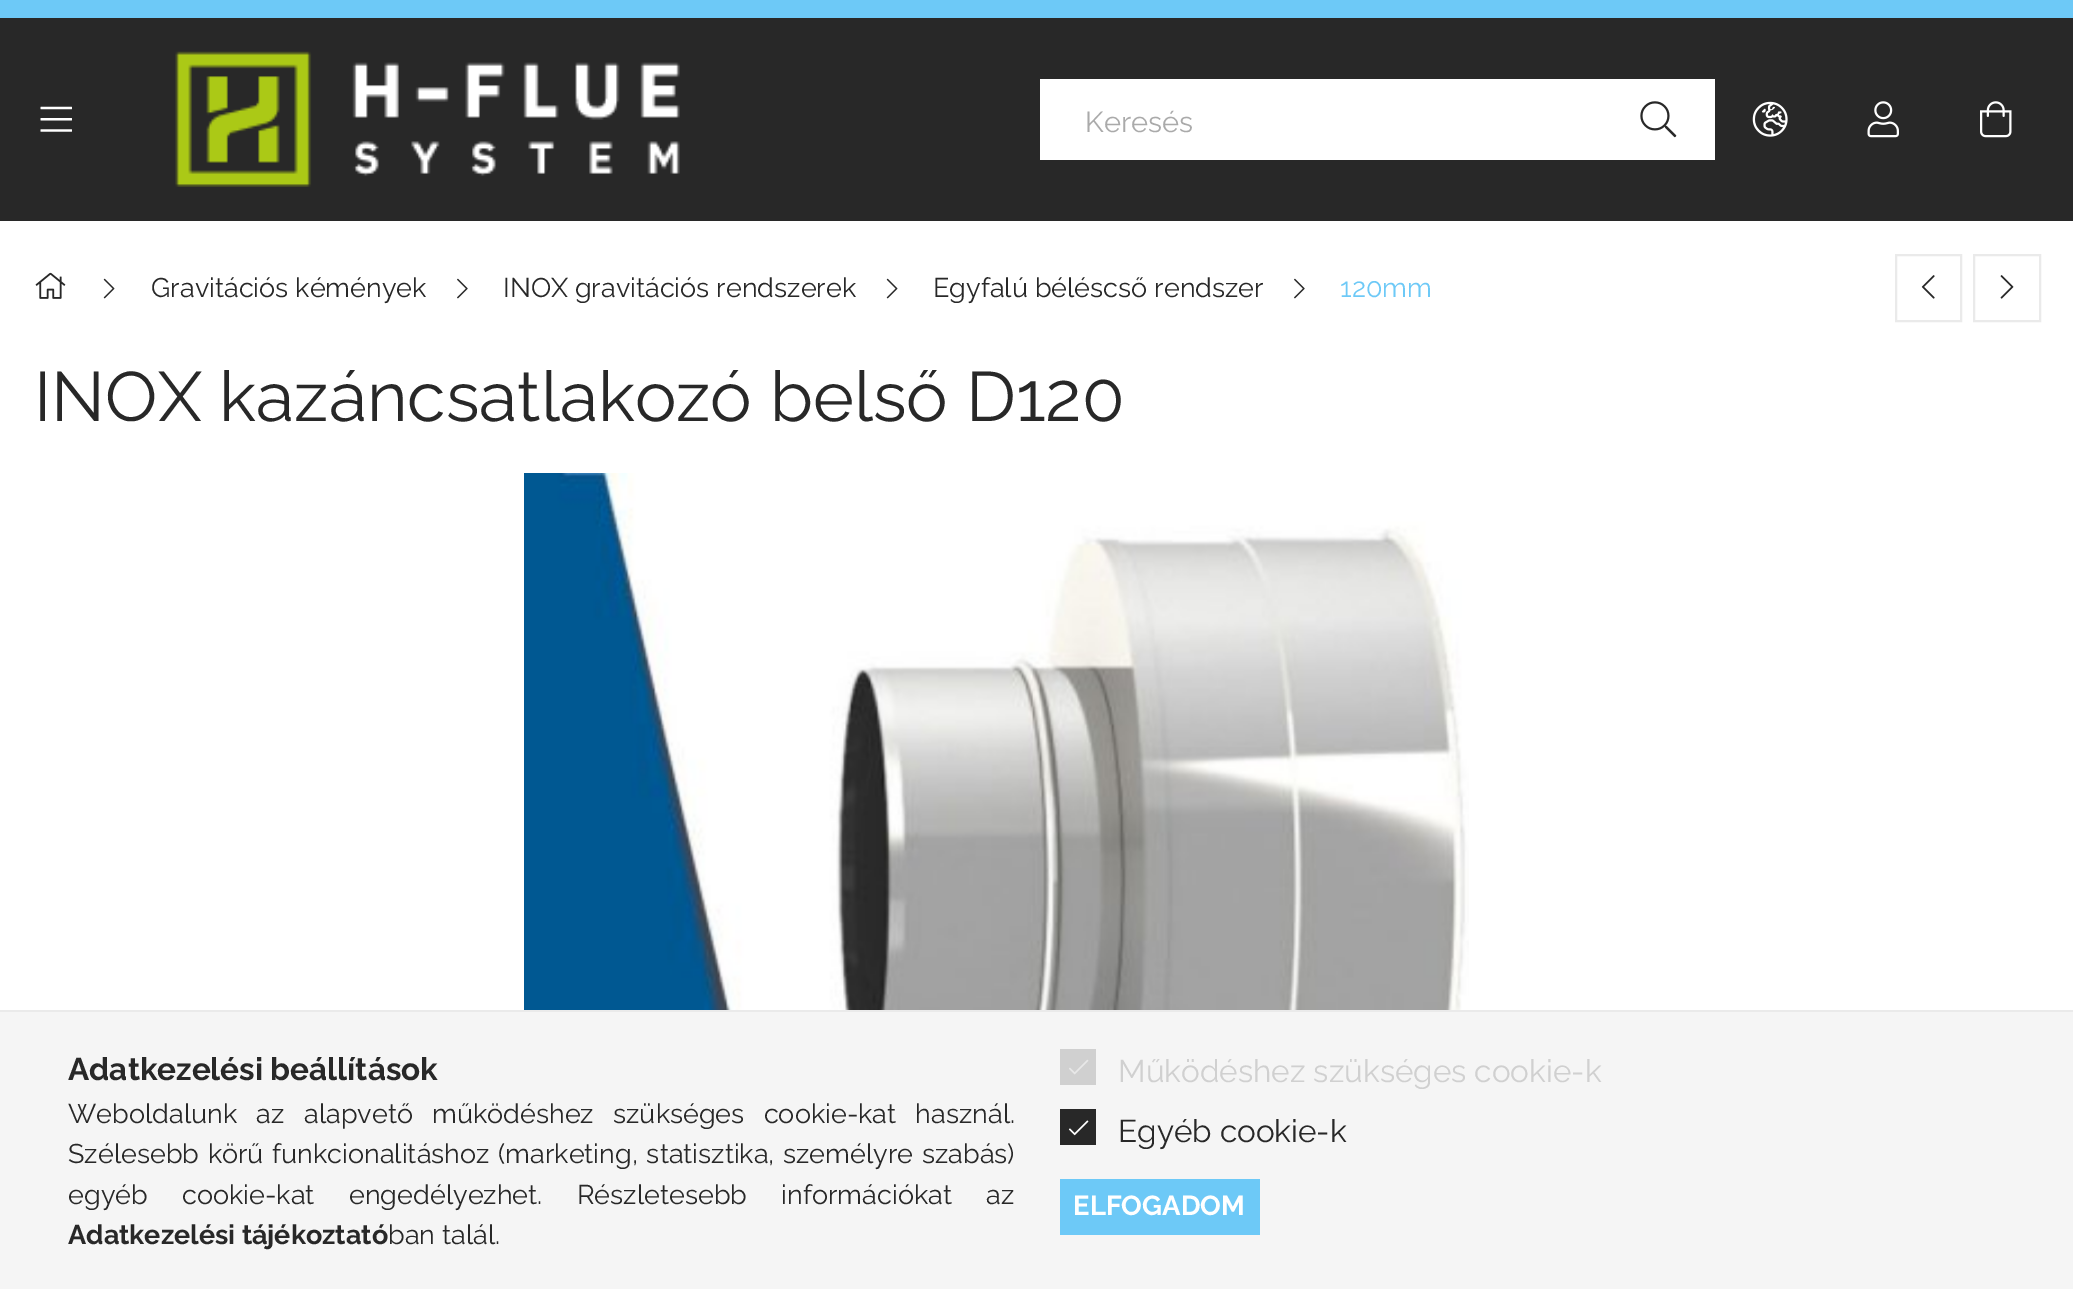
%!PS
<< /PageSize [2073 1289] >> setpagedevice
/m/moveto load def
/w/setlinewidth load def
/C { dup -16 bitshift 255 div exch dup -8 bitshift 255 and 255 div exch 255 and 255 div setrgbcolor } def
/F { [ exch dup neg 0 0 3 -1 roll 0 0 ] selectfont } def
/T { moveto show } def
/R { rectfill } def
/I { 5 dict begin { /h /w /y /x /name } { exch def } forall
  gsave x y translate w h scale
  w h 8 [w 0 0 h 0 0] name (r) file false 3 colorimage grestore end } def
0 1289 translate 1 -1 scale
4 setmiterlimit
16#FFFFFF C
0 0 2073 1289 R
16#6DC9F7 C
0 0 2073 18 R
16#282828 C
0 18 2073 203 R
(1.rgb) 40 106 32 26 I
(2.rgb) 175 51 505 136 I
16#FFFFFF C
1040 79 675 81 R
/Raleway-Regular 29 F
16#AAAAAA C
(Keresés) 1085 132 T
(3.rgb) 1640 101 37 37 I
(4.rgb) 1752 101 36 36 I
(5.rgb) 1867 101 32 37 I
(6.rgb) 1980 101 32 37 I
(7.rgb) 35 272 31 27 I
(8.rgb) 103 278 12 21 I
/Raleway-Regular 27 F
16#282828 C
(Gravitációs kémények) 151 297 T
(9.rgb) 457 278 11 21 I
(INOX gravitációs rendszerek) 503 297 T
(8.rgb) 886 278 12 21 I
(Egyfalú béléscső rendszer) 933 297 T
(9.rgb) 1294 278 11 21 I
16#6DC9F7 C
(120mm) 1340 297 T
16#EAEAEA C
2 w
1896 255 65 66 rectstroke
(10.rgb) 1921 275 14 24 I
1974 255 66 66 rectstroke
(11.rgb) 2000 275 14 24 I
/Raleway-Regular 69.75 F
16#282828 C
(INOX kazáncsatlakozó belső D120) 34 421 T
(12.rgb) 524 473 945 537 I
16#F5F5F5 C
0 1012 2073 277 R
16#EAEAEA C
0 1010 2073 2 R
/Raleway-Bold 31.5 F
16#282828 C
(Adatkezelési beállítások) 68 1080 T
/Raleway-Regular 27 F
68 1123 m 12.5 0 32 (Weboldalunk az alapvető működéshez szükséges cookie-kat használ.) widthshow
68 1163 m 1.75 0 32 (Szélesebb körű funkcionalitáshoz \(marketing, statisztika, személyre szabás\)) widthshow
68 1204 m 27.5 0 32 (egyéb cookie-kat engedélyezhet. Részletesebb információkat az) widthshow
/Raleway-Bold 27 F
(Adatkezelési tájékoztató) 68 1244 T
/Raleway-Regular 27 F
(ban talál.) 388 1244 T
16#D0D0D0 C
1060 1049 36 36 R
(13.rgb) 1069 1059 20 16 I
/Raleway-Regular 31.5 F
(Működéshez szükséges cookie-k) 1118 1082 T
16#282828 C
1060 1109 36 36 R
(14.rgb) 1068 1120 21 16 I
(Egyéb cookie-k) 1118 1142 T
16#6DC9F7 C
1060 1179 200 56 R
/Raleway-Bold 27.5 F
16#FFFFFF C
(ELFOGADOM) 1073 1215 T
showpage
